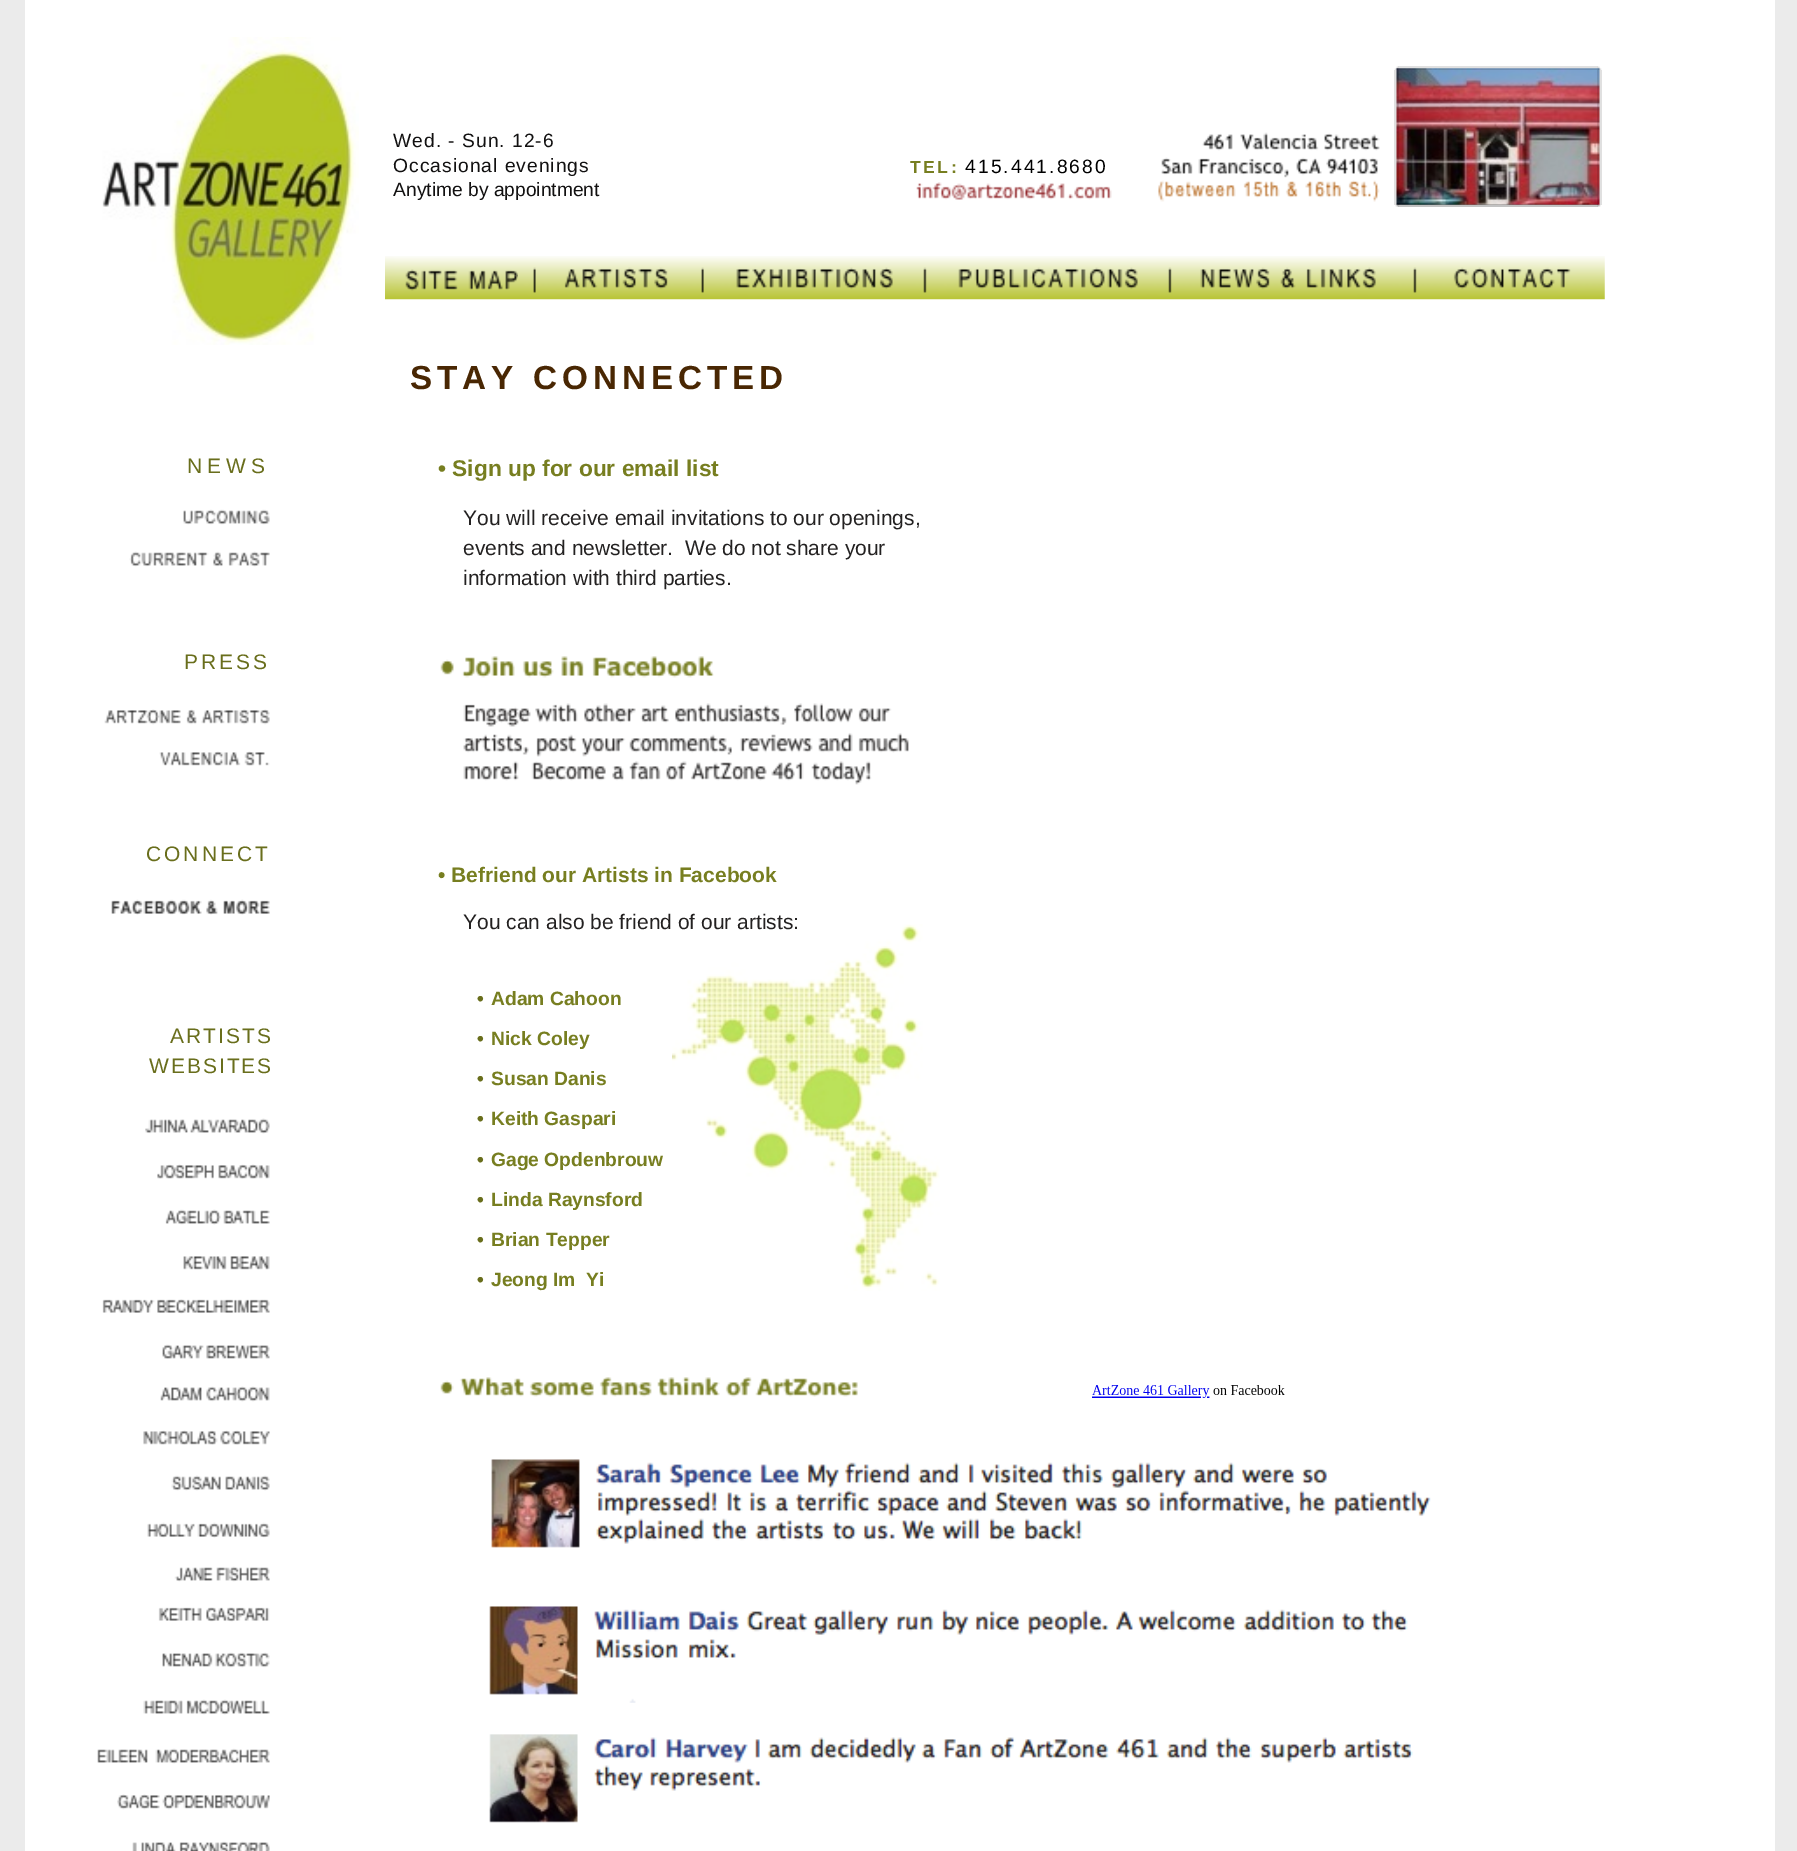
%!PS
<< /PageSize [1797 1851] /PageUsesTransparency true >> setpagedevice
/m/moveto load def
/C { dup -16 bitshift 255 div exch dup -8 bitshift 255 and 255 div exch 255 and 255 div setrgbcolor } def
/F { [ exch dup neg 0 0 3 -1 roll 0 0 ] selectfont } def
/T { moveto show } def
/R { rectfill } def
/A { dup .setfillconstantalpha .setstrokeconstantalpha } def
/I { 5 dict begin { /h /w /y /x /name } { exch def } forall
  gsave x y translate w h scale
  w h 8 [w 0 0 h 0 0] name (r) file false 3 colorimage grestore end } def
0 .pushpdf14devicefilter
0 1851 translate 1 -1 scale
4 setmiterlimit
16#EBEBEB C
0 0 1797 1851 R
16#FFFFFF C
25 0 1750 1851 R
(1.rgb) 102 37 257 308 I
/LiberationSans-Regular 19.25 F
16#121111 C
393 147 m 1 0 (Wed. - Sun. 12-6) ashow
393 172 m 1 0 (Occasional evenings) ashow
(Anytime by appointment) 393 196 T
/LiberationSans-Bold 17.5 F
16#777E20 C
910 173 m 2.5 0 (TEL:) ashow
/LiberationSans-Regular 19.25 F
16#000000 C
965 173 m 2.1 0 (415.441.8680) ashow
(2.rgb) 1158 132 222 70 I
(5.rgb) 1396 68 204 137 I
(3.rgb) 1394 66 5 4 I
0.12 A
1398 66 200 4 R
1 A
(4.rgb) 1597 66 5 4 I
0.12 A
1394 70 5 135 R
1597 70 5 135 R
1 A
(7.rgb) 1597 204 4 3 I
0.24 A
1398 204 200 3 R
1 A
(6.rgb) 1395 204 4 3 I
(8.rgb) 916 182 196 18 I
(9.rgb) 385 256 1220 44 I
(10.rgb) 405 269 113 22 I
(11.rgb) 533 267 135 26 I
(12.rgb) 701 267 192 26 I
(13.rgb) 923 267 215 26 I
(14.rgb) 1168 267 208 26 I
(15.rgb) 1413 267 158 26 I
/LiberationSans-Bold 33.25 F
16#492703 C
410 389 m 5 0 (STAY CONNECTED) ashow
/LiberationSans-Regular 21 F
16#696E1C C
187 473 m 5 0 (NEWS) ashow
/LiberationSans-Bold 22.75 F
16#777E20 C
(• Sign up for our email list) 438 476 T
(16.rgb) 183 509 87 16 I
/LiberationSans-Regular 21 F
16#232121 C
(You will receive email invitations to our openings,) 463 525 T
(events and newsletter.  We do not share your) 463 555 T
(information with third parties.) 463 585 T
(17.rgb) 129 551 141 16 I
16#696E1C C
184 669 m 3 0 (PRESS) ashow
(18.rgb) 440 656 274 22 I
(19.rgb) 104 709 166 16 I
(20.rgb) 463 703 446 82 I
(21.rgb) 159 751 111 15 I
146 861 m 3 0 (CONNECT) ashow
/LiberationSans-Bold 21 F
16#777E20 C
(• Befriend our Artists in Facebook) 438 882 T
(22.rgb) 111 899 159 16 I
(23.rgb) 672 924 268 367 I
/LiberationSans-Regular 21 F
16#232121 C
(You can also be friend of our artists:) 463 929 T
16#696E1C C
170 1043 m 2 0 (ARTISTS) ashow
149 1073 m 2 0 (WEBSITES) ashow
/LiberationSans-Bold 19.25 F
(•) 477 1005 T
16#777E20 C
(Adam Cahoon) 491 1005 T
16#696E1C C
(•) 477 1045 T
16#777E20 C
(Nick Coley) 491 1045 T
16#696E1C C
(•) 477 1085 T
16#777E20 C
(Susan Danis) 491 1085 T
16#696E1C C
(•) 477 1125 T
16#777E20 C
(Keith Gaspari) 491 1125 T
16#696E1C C
(•) 477 1166 T
16#777E20 C
(Gage Opdenbrouw) 491 1166 T
16#696E1C C
(•) 477 1206 T
16#777E20 C
(Linda Raynsford) 491 1206 T
16#696E1C C
(•) 477 1246 T
16#777E20 C
(Brian Tepper) 491 1246 T
16#696E1C C
(•) 477 1286 T
16#777E20 C
(Jeong Im  Yi) 491 1286 T
(24.rgb) 145 1118 125 16 I
(25.rgb) 157 1164 113 15 I
(26.rgb) 165 1209 105 16 I
(27.rgb) 183 1256 87 14 I
(28.rgb) 102 1299 168 15 I
(29.rgb) 162 1344 108 15 I
(30.rgb) 160 1386 110 16 I
(31.rgb) 440 1377 418 20 I
(32.rgb) 1092 1385 193 13 I
(33.rgb) 143 1430 127 15 I
(34.rgb) 171 1475 99 16 I
(35.rgb) 491 1459 940 89 I
(36.rgb) 147 1522 123 16 I
(37.rgb) 174 1566 96 16 I
(38.rgb) 158 1607 112 15 I
(39.rgb) 489 1606 919 97 I
(40.rgb) 162 1652 108 16 I
(41.rgb) 143 1699 127 16 I
(42.rgb) 97 1748 173 16 I
(43.rgb) 489 1734 924 89 I
(44.rgb) 117 1794 153 16 I
(45.rgb) 132 1841 138 10 I
.poppdf14devicefilter showpage
